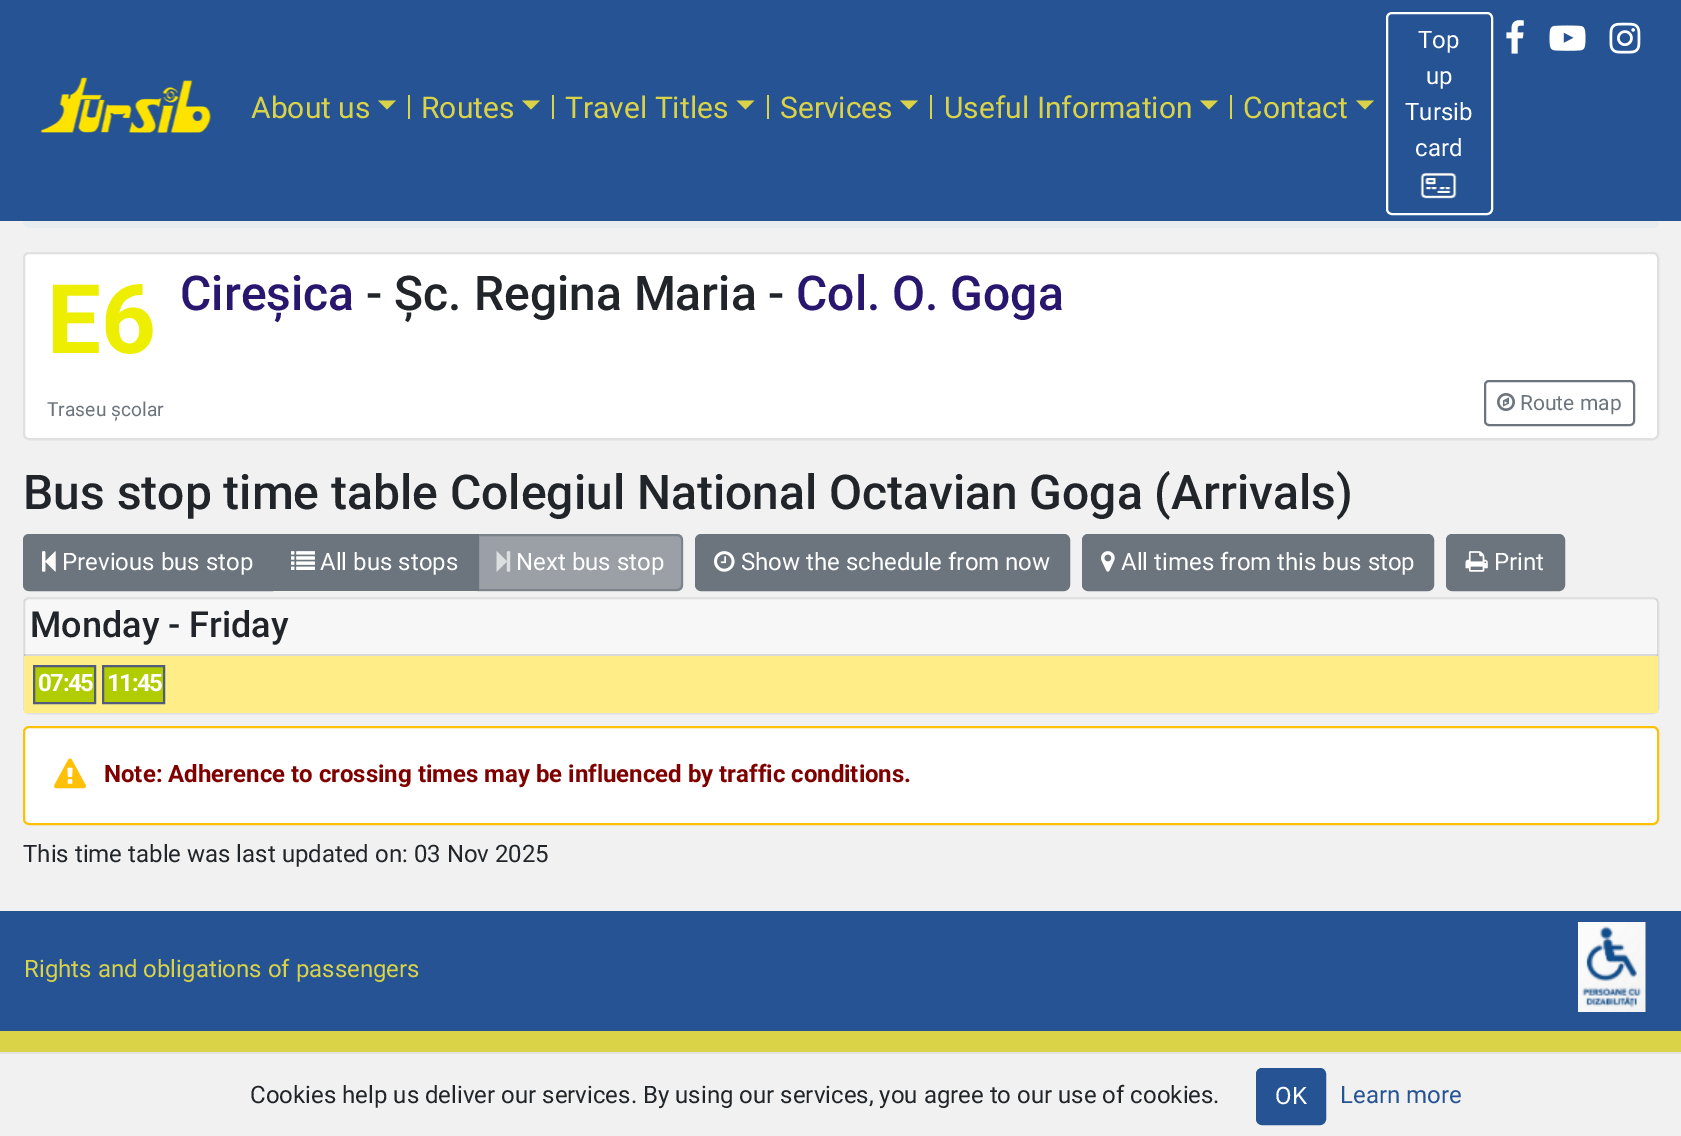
%!PS
<< /PageSize [1681 1136] /PageUsesTransparency true >> setpagedevice
/m/moveto load def
/l/rlineto load def
/c/rcurveto load def
/z/closepath load def
/f/fill load def
/s/stroke load def
/q/gsave load def
/Q_/grestore load def
/w/setlinewidth load def
/C { dup -16 bitshift 255 div exch dup -8 bitshift 255 and 255 div exch 255 and 255 div setrgbcolor } def
/F { [ exch dup neg 0 0 3 -1 roll 0 0 ] selectfont } def
/T { moveto show } def
/R { rectfill } def
/A { dup .setfillconstantalpha .setstrokeconstantalpha } def
/Q { 5 dict begin { /r /h /w /y /x } { exch def } forall
  x r add y moveto x w add y 2 copy h add r arct x w add y h add x 1 index r arct
  x y h add x y r arct x y 2 copy exch w add exch r arct closepath end } def
/I { 5 dict begin { /h /w /y /x /name } { exch def } forall
  gsave x y translate w h scale
  w h 8 [w 0 0 h 0 0] name (r) file false 3 colorimage grestore end } def
0 .pushpdf14devicefilter
0 1136 translate 1 -1 scale
4 setmiterlimit
16#F1F1F1 C
0 0 1681 1136 R
16#E9ECEF C
23 156 1636 72 6 Q f
16#255393 C
0 0 1681 221 R
(1.rgb) 40 77 171 56 I
16#DAD348 C
408 95 2 24 R
/Roboto-Regular 30 F
(About us) 251 118 T
378 100.5 m 18 0 l -9 9 l z f
552 95 2 24 R
(Routes) 421 118 T
522 100.5 m 18 0 l -9 9 l z f
767 95 2 24 R
(Travel Titles) 565 118 T
736.5 100.5 m 18 0 l -9 9 l z f
930 95 2 24 R
(Services) 780 118 T
900 100.5 m 18 0 l -9 9 l z f
1230 95 2 24 R
(Useful Information) 944 118 T
1200 100.5 m 18 0 l -9 9 l z f
(Contact) 1243 118 T
1356 100.5 m 18 0 l -9 9 l z f
16#FFFFFF C
2 w
1387 13 105 201 5 Q s
/Roboto-Regular 24 F
(Top) 1418 48 T
(up) 1426 84 T
(Tursib) 1405 120 T
(card) 1415 156 T
(2.rgb) 1420 172 37 27 I
(3.rgb) 1506 20 18 34 I
(4.rgb) 1549 25 37 26 I
(5.rgb) 1609 22 32 32 I
23 252 1636 188 6 Q f
0.12 A
16#000000 C
24 253 1634 186 5 Q s
/Roboto-Bold 96 F
1 A
16#EEEE00 C
(E6) 47 353 T
/Roboto-Medium 48 F
16#28166F C
(Cireșica) 180 310 T
16#212529 C
(- Șc. Regina Maria -) 366 310 T
16#28166F C
(Col. O. Goga) 796 310 T
/Roboto-Regular 19.25 F
16#6C757D C
(Traseu școlar) 47 416 T
1485 381 149 44 4 Q s
(6.rgb) 1497 393 18 18 I
/Roboto-Regular 21 F
(Route map) 1520 410 T
/Roboto-Medium 48 F
16#212529 C
(Bus stop time table Colegiul National Octavian Goga \(Arrivals\)) 23 509 T
16#6C757D C
29 535 m 243 0 l 0 55 l -243 0 l -3 0 -5 -2 -5 -5 c 0 -45 l 0 -3 2 -5 5 -5 c z q f Q_
s
(7.rgb) 42 551 14 21 I
/Roboto-Regular 24 F
16#FFFFFF C
(Previous bus stop) 62 570 T
16#6C757D C
273 534 206 57 R
(8.rgb) 291 551 24 19 I
16#FFFFFF C
(All bus stops) 320 570 T
0.65 A
16#6C757D C
477 534 m 200 0 l 3.5 0 6 2.5 6 6 c 0 45 l 0 3.5 -2.5 6 -6 6 c -200 0 l z f
478 535 m 199 0 l 3 0 5 2 5 5 c 0 45 l 0 3 -2 5 -5 5 c -199 0 l z s
1 A
(9.rgb) 496 551 15 21 I
16#FFFFFF C
(Next bus stop) 516 570 T
16#6C757D C
696 535 373 55 5 Q q f Q_
s
(10.rgb) 714 551 21 21 I
16#FFFFFF C
(Show the schedule from now) 741 570 T
16#6C757D C
1083 535 350 55 5 Q q f Q_
s
(11.rgb) 1101 551 14 21 I
16#FFFFFF C
(All times from this bus stop) 1121 570 T
16#6C757D C
1447 535 117 55 5 Q q f Q_
s
(12.rgb) 1465 551 23 21 I
16#FFFFFF C
(Print) 1494 570 T
23 597 1636 117 6 Q f
0.12 A
16#000000 C
24 598 1634 115 5 Q s
0.03 A
24 599 1634 57 R
0.12 A
24 654 1634 2 R
/Roboto-Medium 36 F
1 A
16#212529 C
(Monday - Friday) 30 637 T
16#FFEE88 C
24 656 1634 57 R
16#B1CC00 C
34 666 m 61 0 l 0 37 l -61 0 l z q f Q_
16#525A7E C
s
/Roboto-Bold 24 F
16#FFFFFF C
38 691 m -1.5 0 (07:45) ashow
16#B1CC00 C
103 666 m 61 0 l 0 37 l -61 0 l z q f Q_
16#525A7E C
s
16#FFFFFF C
107 691 m -1.5 0 (11:45) ashow
24 727 1634 97 5 Q q f Q_
16#FFC107 C
s
(13.rgb) 54 758 32 31 I
16#800000 C
(Note: Adherence to crossing times may be influenced by traffic conditions.) 104 782 T
/Roboto-Regular 24 F
16#212529 C
(This time table was last updated on: 03 Nov 2025) 23 862 T
16#DAD348 C
0 1031 1681 21 R
16#255393 C
0 911 1681 120 R
16#DAD348 C
(Rights and obligations of passengers) 24 977 T
(14.rgb) 1578 922 68 90 I
16#E4E4E4 C
0 1052 1681 2 R
16#212529 C
(Cookies help us deliver our services. By using our services, you agree to our use of cookies.) 250 1103 T
16#255393 C
1257 1069 68 55 5 Q q f Q_
s
16#FFFFFF C
(OK) 1275 1104 T
16#255393 C
(Learn more) 1340 1103 T
.poppdf14devicefilter showpage
